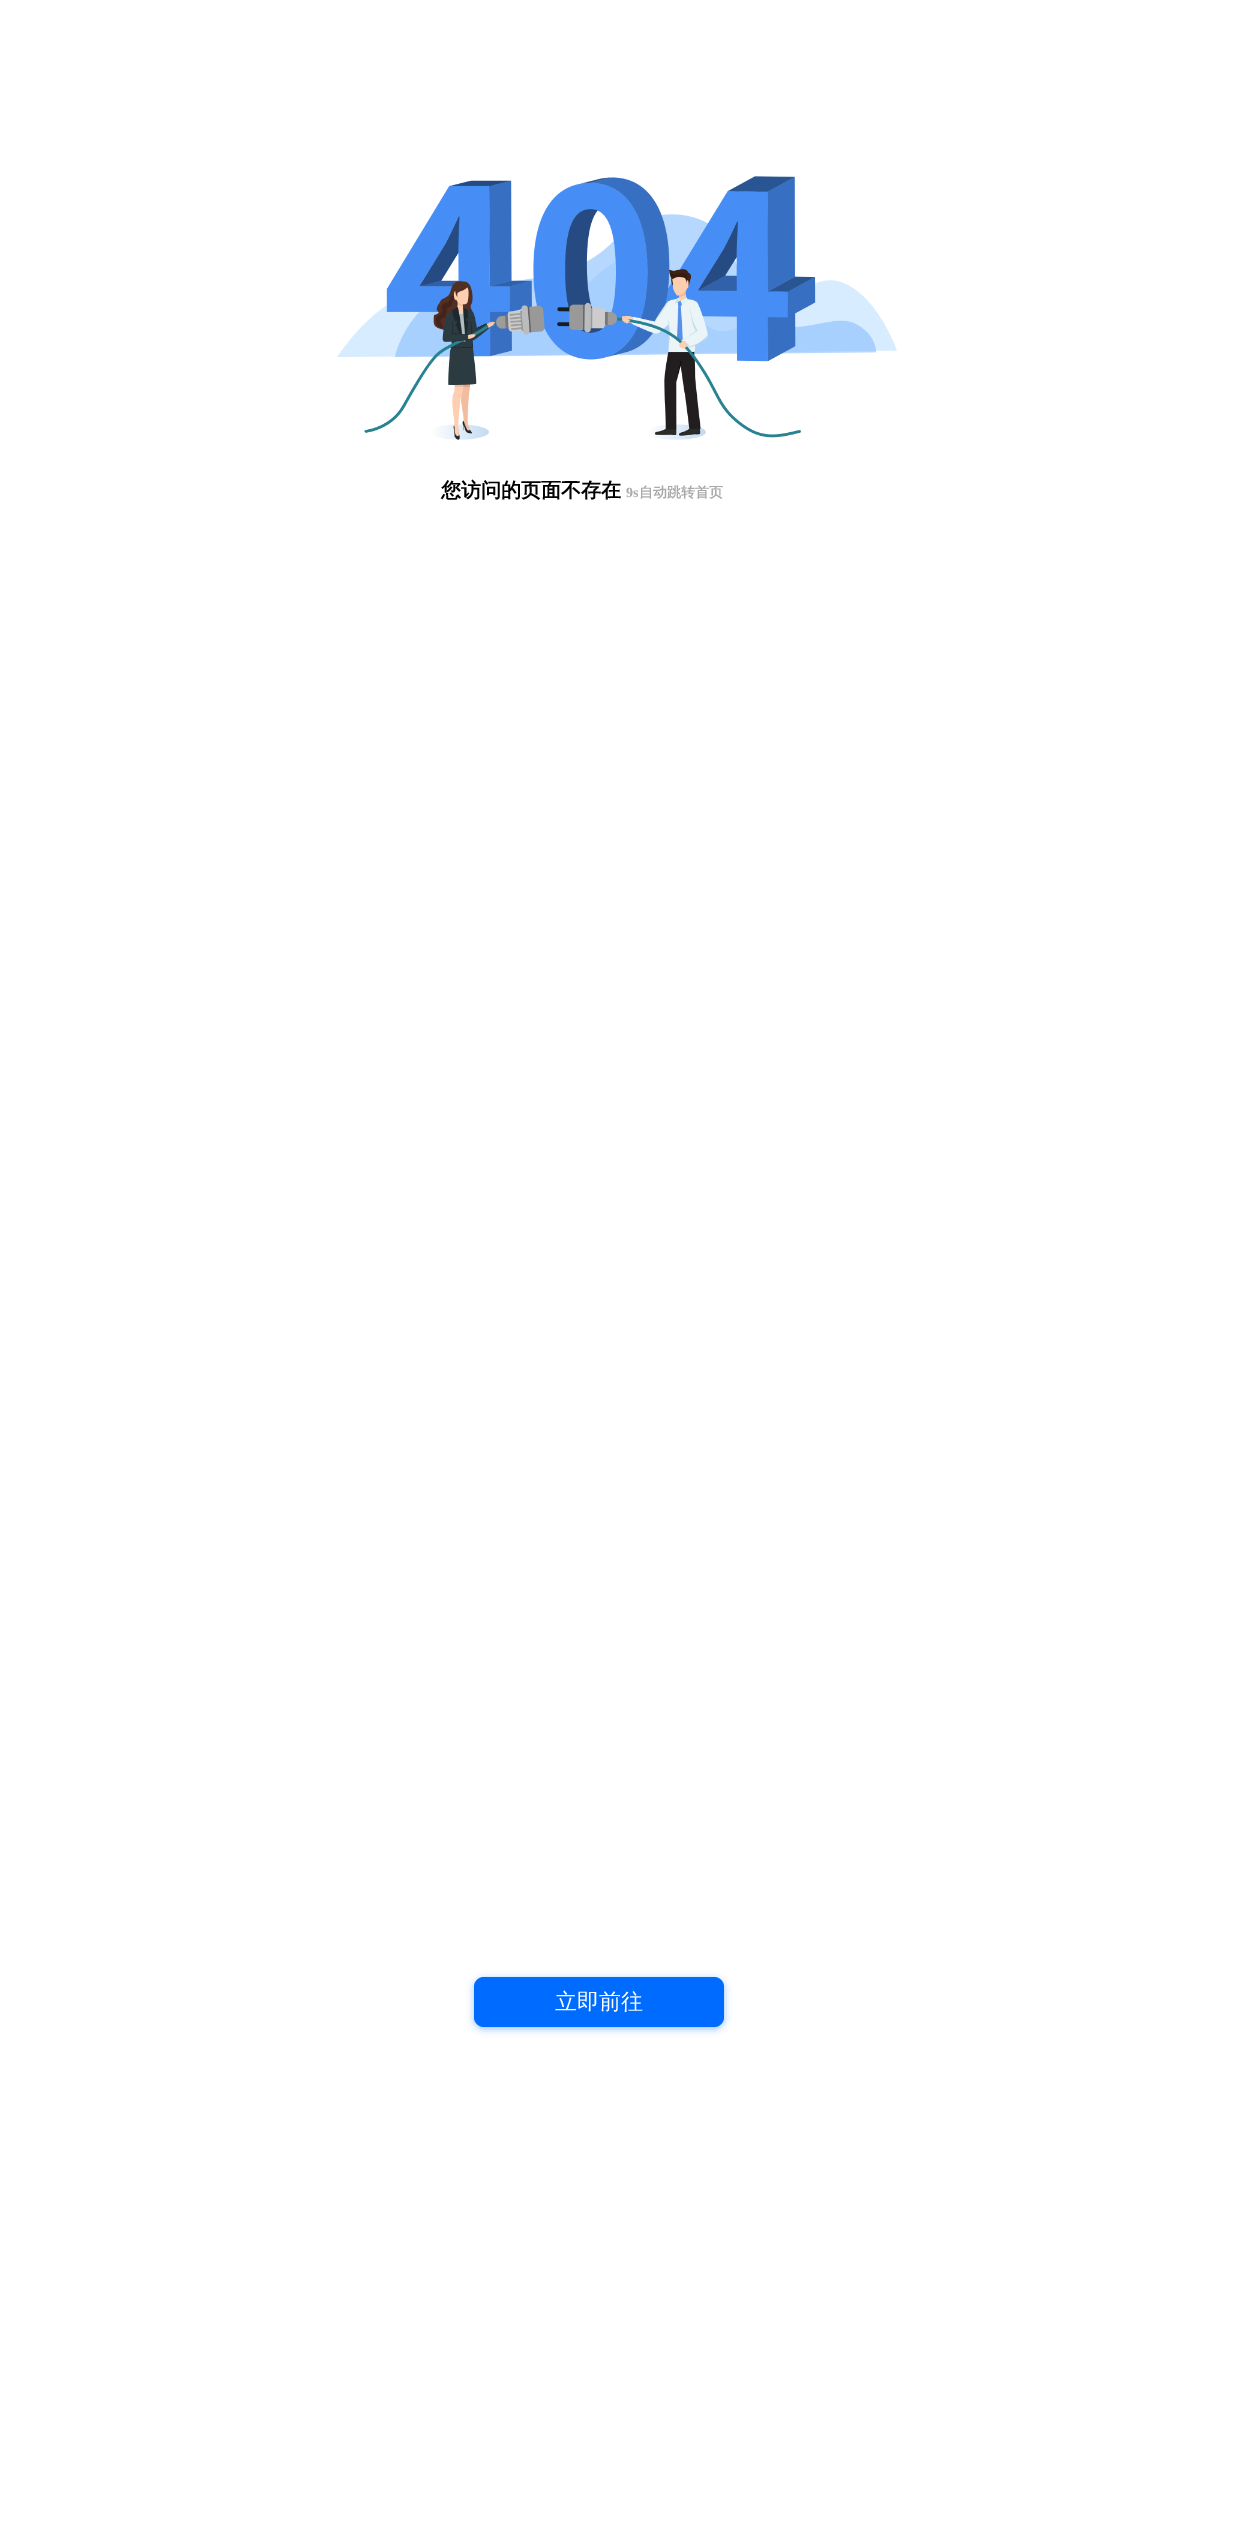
%!PS
<< /PageSize [1234 2534] /PageUsesTransparency true >> setpagedevice
/f/fill load def
/C { dup -16 bitshift 255 div exch dup -8 bitshift 255 and 255 div exch 255 and 255 div setrgbcolor } def
/F { [ exch dup neg 0 0 3 -1 roll 0 0 ] selectfont } def
/T { moveto show } def
/R { rectfill } def
/A { dup .setfillconstantalpha .setstrokeconstantalpha } def
/Q { 5 dict begin { /r /h /w /y /x } { exch def } forall
  x r add y moveto x w add y 2 copy h add r arct x w add y h add x 1 index r arct
  x y h add x y r arct x y 2 copy exch w add exch r arct closepath end } def
/S { 12 dict begin { /a /b /q /h /w /y /x } { exch def } forall gsave /was 0 def
  9 -2 -9 { dup b mul 4 div /e exch def 1 sub .425 mul 2.718 exch exp 1 add a .99 .min exch div /now exch def
    1 1 now sub 1 was sub div sub A /was now def
    w h .min e 2 mul add 0 gt { x e sub y e sub w e 2 mul add h e 2 mul add
      q e add b .6 mul add w h .min 2 div e add .min 0 .max Q fill } if } for grestore end } def
/I { 5 dict begin { /h /w /y /x /name } { exch def } forall
  gsave x y translate w h scale
  w h 8 [w 0 0 h 0 0] name (r) file false 3 colorimage grestore end } def
0 .pushpdf14devicefilter
0 2534 translate 1 -1 scale
4 setmiterlimit
16#FFFFFF C
0 0 1234 2534 R
(1.rgb) 337 176 560 264 I
/WenQuanYiZenHei-Bold 20 F
16#000000 C
(您访问的页面不存在) 441 497 T
/LiberationSerif-Bold 14 F
16#A9A9A9 C
(9s) 626 497 T
/WenQuanYiZenHei-Bold 14 F
(自动跳转首页) 639 497 T
16#006CFF C
474 1979 250 50 10 4 .4 S
474 1977 250 50 10 Q f
/WenQuanYiZenHei-Medium 22 F
16#FFFFFF C
(立即前往) 555 2009 T
.poppdf14devicefilter showpage
